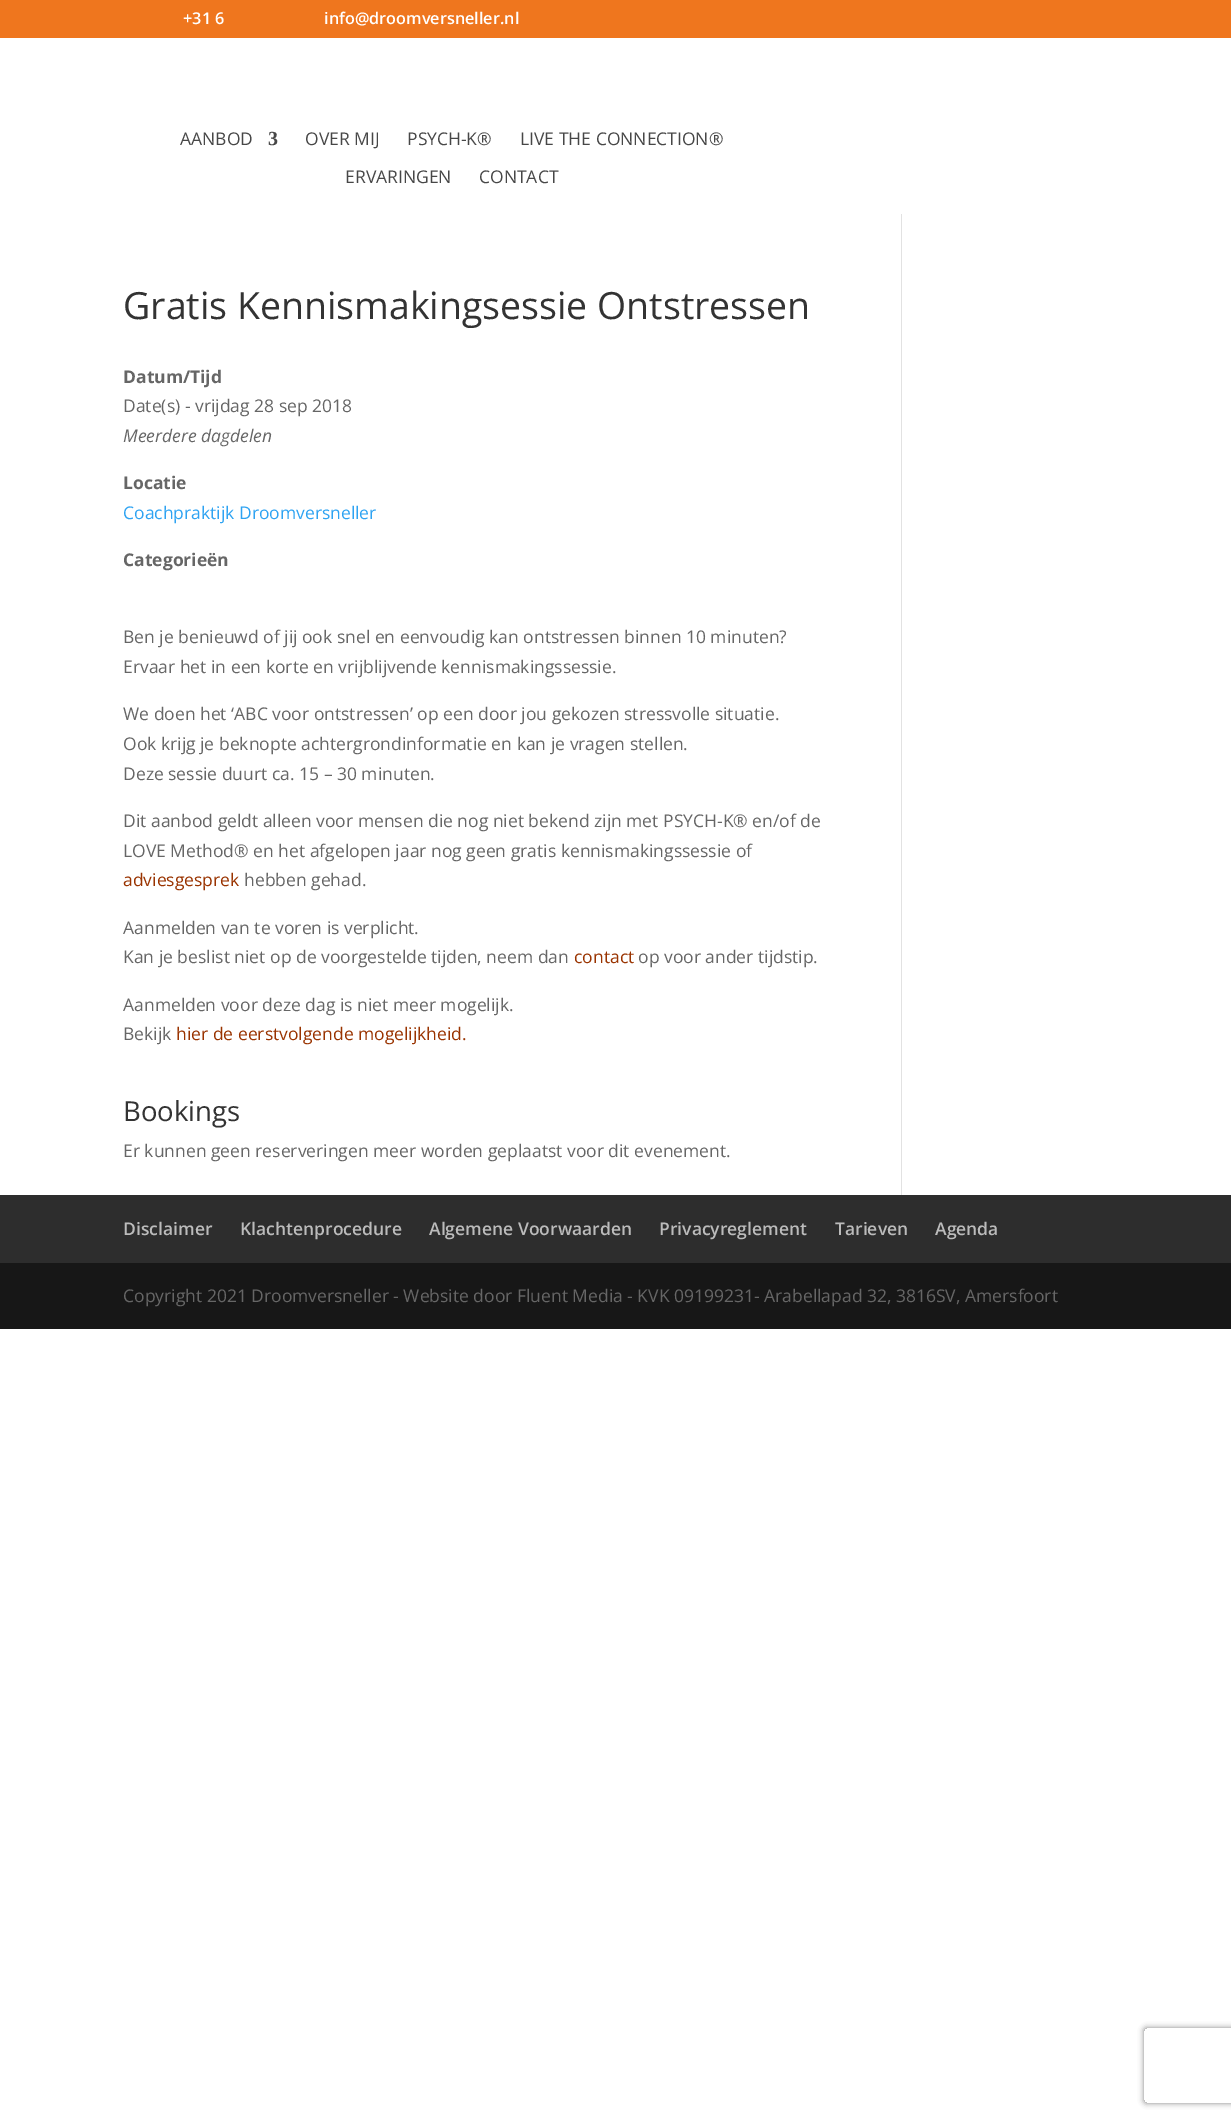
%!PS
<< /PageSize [1231 2119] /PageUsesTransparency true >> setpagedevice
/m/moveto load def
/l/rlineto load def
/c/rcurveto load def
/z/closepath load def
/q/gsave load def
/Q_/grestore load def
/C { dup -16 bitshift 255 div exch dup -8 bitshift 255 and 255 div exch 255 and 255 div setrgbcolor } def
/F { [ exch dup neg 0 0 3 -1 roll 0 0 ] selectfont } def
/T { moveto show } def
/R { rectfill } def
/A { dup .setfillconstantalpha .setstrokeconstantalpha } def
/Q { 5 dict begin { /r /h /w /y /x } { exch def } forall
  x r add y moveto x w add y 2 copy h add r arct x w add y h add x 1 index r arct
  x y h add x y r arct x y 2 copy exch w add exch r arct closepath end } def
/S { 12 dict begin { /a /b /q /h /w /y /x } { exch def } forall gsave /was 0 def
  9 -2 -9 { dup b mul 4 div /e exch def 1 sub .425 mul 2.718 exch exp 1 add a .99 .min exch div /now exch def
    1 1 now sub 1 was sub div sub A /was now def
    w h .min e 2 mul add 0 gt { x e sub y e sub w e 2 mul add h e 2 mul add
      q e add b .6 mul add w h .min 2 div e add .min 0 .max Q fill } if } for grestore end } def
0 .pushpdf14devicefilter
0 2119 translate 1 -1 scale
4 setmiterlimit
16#FFFFFF C
0 0 1231 2119 R
16#EF761E C
0 0 1231 38 R
/OpenSans-SemiBold 16.25 F
16#FFFFFF C
(+31 6) 183 24 T
(info@droomversneller.nl) 324 24 T
/OpenSans-Regular 17.5 F
16#474747 C
(AANBOD) 180 145 T
/LiberationSerif-Bold 20 F
(3) 268 145 T
/OpenSans-Regular 17.5 F
(OVER MIJ) 305 145 T
(PSYCH-K®) 407 145 T
(LIVE THE CONNECTION®) 520 145 T
(ERVARINGEN) 345 183 T
(CONTACT) 479 183 T
/OpenSans-Regular 37.5 F
16#333333 C
(Gratis Kennismakingsessie Ontstressen) 123 319 T
/OpenSans-Bold 17.5 F
16#666666 C
(Datum/Tijd) 123 383 T
/OpenSans-Regular 17.5 F
(Date\(s\) - vrijdag 28 sep 2018) 123 412 T
/OpenSans-Italic 17.5 F
(Meerdere dagdelen) 123 442 T
/OpenSans-Bold 17.5 F
(Locatie) 123 489 T
/OpenSans-Regular 17.5 F
16#2EA3F2 C
(Coachpraktijk Droomversneller) 123 519 T
/OpenSans-Bold 17.5 F
16#666666 C
(Categorieën) 123 566 T
/OpenSans-Regular 17.5 F
(Ben je benieuwd of jij ook snel en eenvoudig kan ontstressen binnen 10 minuten?) 123 643 T
(Ervaar het in een korte en vrijblijvende kennismakingssessie.) 123 673 T
(We doen het ‘ABC voor ontstressen’ op een door jou gekozen stressvolle situatie.) 123 720 T
(Ook krijg je beknopte achtergrondinformatie en kan je vragen stellen.) 123 750 T
(Deze sessie duurt ca. 15 – 30 minuten.) 123 780 T
(Dit aanbod geldt alleen voor mensen die nog niet bekend zijn met PSYCH-K® en/of de) 123 827 T
(LOVE Method® en het afgelopen jaar nog geen gratis kennismakingssessie of) 123 857 T
16#993300 C
(adviesgesprek) 123 886 T
16#666666 C
(hebben gehad.) 244 886 T
(Aanmelden van te voren is verplicht.) 123 934 T
(Kan je beslist niet op de voorgestelde tijden, neem dan) 123 963 T
16#993300 C
(contact) 574 963 T
16#666666 C
(op voor ander tijdstip.) 638 963 T
(Aanmelden voor deze dag is niet meer mogelijk.) 123 1011 T
(Bekijk) 123 1040 T
16#993300 C
(hier de eerstvolgende mogelijkheid.) 176 1040 T
/OpenSans-Regular 27.5 F
16#333333 C
(Bookings) 123 1121 T
/OpenSans-Regular 17.5 F
16#666666 C
(Er kunnen geen reserveringen meer worden geplaatst voor dit evenement.) 123 1157 T
16#E2E2E2 C
901 214 1 981 R
16#2D2D2D C
0 1195 1231 68 R
/OpenSans-SemiBold 17.5 F
16#BBBBBB C
(Disclaimer) 123 1235 T
(Klachtenprocedure) 240 1235 T
(Algemene Voorwaarden) 429 1235 T
(Privacyreglement) 659 1235 T
(Tarieven) 835 1235 T
(Agenda) 935 1235 T
16#171717 C
0 1263 1231 66 R
/OpenSans-Regular 17.5 F
16#666666 C
(Copyright 2021 Droomversneller - Website door Fluent Media - KVK 09199231- Arabellapad 32, 3816SV, Amersfoort) 123 1302 T
q
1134 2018 m 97 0 l 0 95 l -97 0 l z 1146.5 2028 m 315 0 l 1.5 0 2.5 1 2.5 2.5 c 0 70 l 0 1.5 -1 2.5 -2.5 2.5 c -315 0 l -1.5 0 -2.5 -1 -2.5 -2.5 c 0 -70 l 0 -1.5 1 -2.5 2.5 -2.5 c z eoclip newpath
16#808080 C
1144 2028 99 75 2.5 3 1 S
Q_
.poppdf14devicefilter showpage
